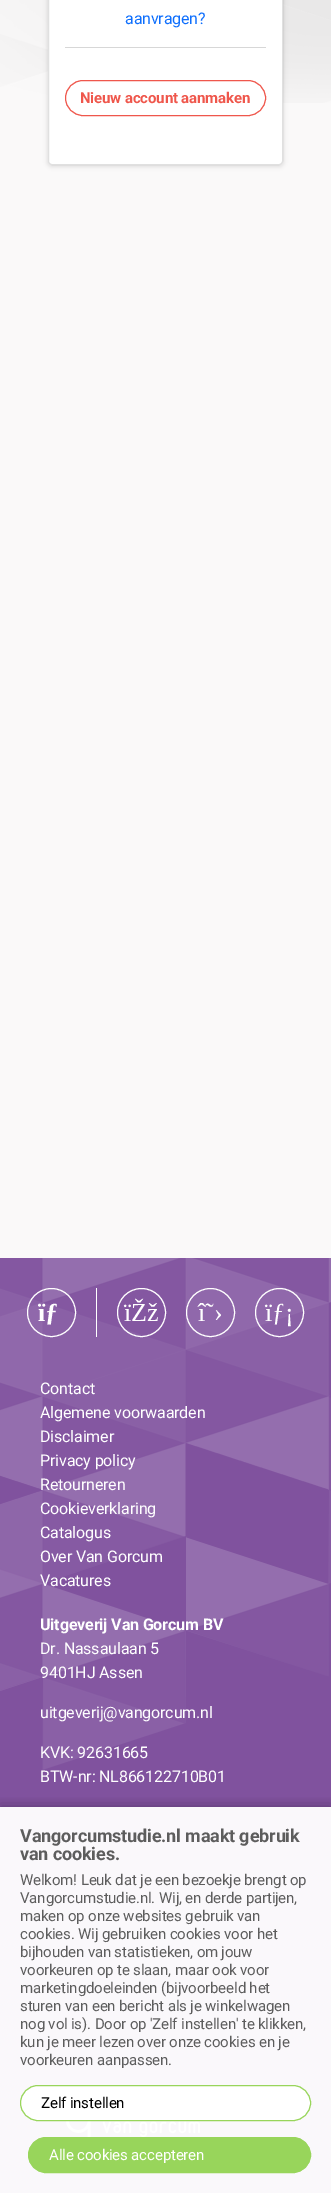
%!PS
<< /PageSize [331 2193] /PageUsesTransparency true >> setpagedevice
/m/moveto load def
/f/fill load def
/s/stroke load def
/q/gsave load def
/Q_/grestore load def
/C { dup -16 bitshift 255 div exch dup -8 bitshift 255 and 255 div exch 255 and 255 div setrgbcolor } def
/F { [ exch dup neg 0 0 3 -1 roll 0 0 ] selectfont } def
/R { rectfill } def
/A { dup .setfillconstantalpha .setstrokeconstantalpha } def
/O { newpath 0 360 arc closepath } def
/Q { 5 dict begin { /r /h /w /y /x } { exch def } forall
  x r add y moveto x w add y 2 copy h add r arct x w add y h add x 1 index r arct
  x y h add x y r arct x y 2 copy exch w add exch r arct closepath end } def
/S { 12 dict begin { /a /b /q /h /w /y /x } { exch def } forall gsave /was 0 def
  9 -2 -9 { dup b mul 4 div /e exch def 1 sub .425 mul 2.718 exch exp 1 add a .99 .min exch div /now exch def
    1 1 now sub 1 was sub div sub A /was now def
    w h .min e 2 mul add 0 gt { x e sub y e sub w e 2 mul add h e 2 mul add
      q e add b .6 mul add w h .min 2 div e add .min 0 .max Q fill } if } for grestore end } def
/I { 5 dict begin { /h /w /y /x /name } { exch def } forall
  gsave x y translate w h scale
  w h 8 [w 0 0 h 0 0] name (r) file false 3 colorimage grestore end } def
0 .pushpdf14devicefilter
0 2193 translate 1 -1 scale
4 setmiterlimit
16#80529E C
0 0 331 2193 R
16#FAF9F9 C
0 103 331 1155 R
(1.rgb) 0 0 331 103 I
16#000000 C
47 -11 237 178 5 2 .1 S
16#FFFFFF C
48 -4 235 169 4 Q f
0.12 A
16#000000 C
48.5 -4.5 234 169 3.5 Q s
/Roboto-Regular 16 F
1 A
16#0D6EFD C
125 24 m -.15 0 (aanvragen?) ashow
16#D7D7D7 C
65 47 201 1 R
16#EF574C C
65.5 80.5 200 35 17.5 Q s
/Roboto-Bold 15 F
80 103 m -.15 0 (Nieuw account aanmaken) ashow
16#FAF8FB C
0 1807 331 386 R
(2.rgb) 0 1258 331 512 I
16#FFFFFF C
51.5 1312.5 24 O s
/LiberationSerif-Bold 26 F
38 1321 m -.15 0 (ïƒ) ashow
96 1288 1 49 R
141.5 1312.5 24 O s
/LiberationSerif-Regular 26 F
124 1321 m -.15 0 (ïŽž) ashow
210.5 1312.5 24 O s
198 1321 m -.15 0 (î˜›) ashow
279.5 1312.5 24 O s
265 1321 m -.15 0 (ïƒ¡) ashow
/Roboto-Regular 16 F
40 1394 m -.15 0 (Contact) ashow
40 1418 m -.15 0 (Algemene voorwaarden) ashow
40 1442 m -.15 0 (Disclaimer) ashow
40 1466 m -.15 0 (Privacy policy) ashow
40 1490 m -.15 0 (Retourneren) ashow
40 1514 m -.15 0 (Cookieverklaring) ashow
40 1538 m -.15 0 (Catalogus) ashow
40 1562 m -.15 0 (Over Van Gorcum) ashow
40 1586 m -.15 0 (Vacatures) ashow
/Roboto-Bold 16 F
40 1630 m -.15 0 (Uitgeverij Van Gorcum BV) ashow
/Roboto-Regular 16 F
40 1654 m -.15 0 (Dr. Nassaulaan 5) ashow
40 1678 m -.15 0 (9401HJ Assen) ashow
40 1718 m -.15 0 (uitgeverij@vangorcum.nl) ashow
40 1758 m -.15 0 (KVK: 92631665) ashow
40 1782 m -.15 0 (BTW-nr: NL866122710B01) ashow
(3.rgb) 66 2121 134 16 I
q
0 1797 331 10 rectclip
16#000000 C
0 1807 331 386 0 7 .3 S
Q_
/Roboto-Bold 18 F
16#5D5D5D C
20 1842 m -.15 0 (Vangorcumstudie.nl maakt gebruik) ashow
20 1860 m -.15 0 (van cookies.) ashow
/Roboto-Regular 15 F
20 1885 m -.15 0 (Welkom! Leuk dat je een bezoekje brengt op) ashow
20 1903 m -.15 0 (Vangorcumstudie.nl. Wij, en derde partijen,) ashow
20 1921 m -.15 0 (maken op onze websites gebruik van) ashow
20 1939 m -.15 0 (cookies. Wij gebruiken cookies voor het) ashow
20 1957 m -.15 0 (bijhouden van statistieken, om jouw) ashow
20 1975 m -.15 0 (voorkeuren op te slaan, maar ook voor) ashow
20 1993 m -.15 0 (marketingdoeleinden \(bijvoorbeeld het) ashow
20 2011 m -.15 0 (sturen van een bericht als je winkelwagen) ashow
20 2029 m -.15 0 (nog vol is\). Door op 'Zelf instellen' te klikken,) ashow
20 2047 m -.15 0 (kun je meer lezen over onze cookies en je) ashow
20 2065 m -.15 0 (voorkeuren aanpassen.) ashow
16#FFFFFF C
20.5 2085.5 290 35 17.5 Q q f Q_
16#98D55B C
s
16#000000 C
41 2108 m -.15 0 (Zelf instellen) ashow
16#98D55B C
28.5 2137.5 282 35 17.5 Q q f Q_
s
16#FFFFFF C
49 2160 m -.15 0 (Alle cookies accepteren) ashow
.poppdf14devicefilter showpage
